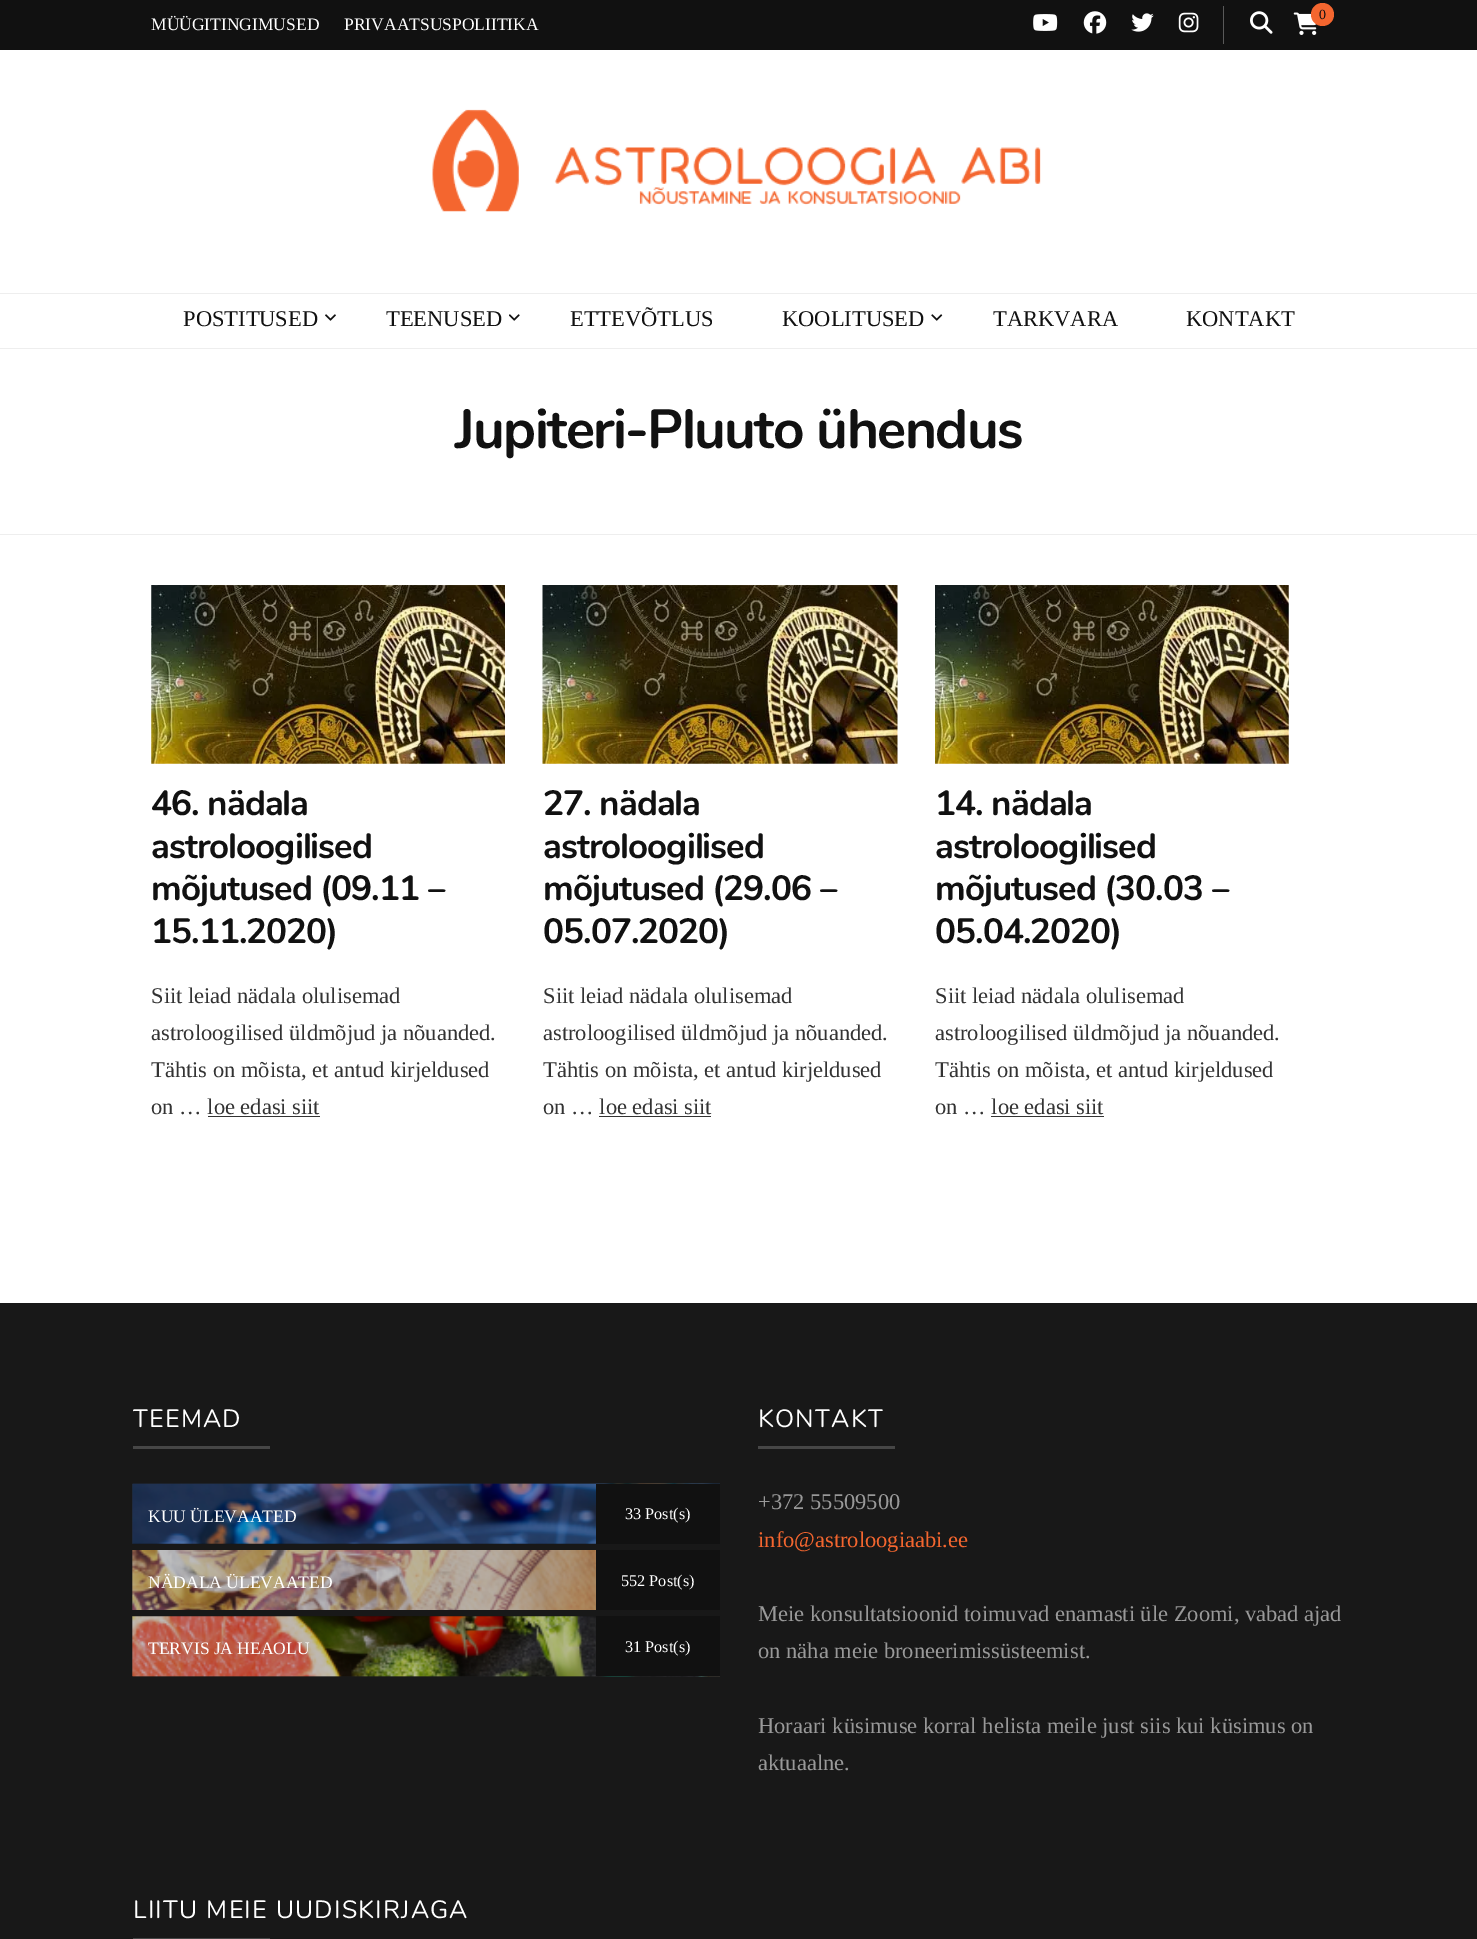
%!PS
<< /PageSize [1477 1939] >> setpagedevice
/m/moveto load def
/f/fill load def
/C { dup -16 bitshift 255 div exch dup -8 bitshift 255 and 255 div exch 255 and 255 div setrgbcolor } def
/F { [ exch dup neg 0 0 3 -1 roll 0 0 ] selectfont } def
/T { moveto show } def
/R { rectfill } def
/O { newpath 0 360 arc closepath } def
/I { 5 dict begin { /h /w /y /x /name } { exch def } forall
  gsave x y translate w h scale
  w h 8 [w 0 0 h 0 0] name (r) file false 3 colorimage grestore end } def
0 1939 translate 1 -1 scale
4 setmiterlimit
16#FFFFFF C
0 0 1477 1939 R
16#111111 C
0 0 1477 50 R
/LiberationSerif-Regular 17.5 F
16#FFFFFF C
(MÜÜGITINGIMUSED) 151 30 T
(PRIVAATSUSPOLIITIKA) 344 30 T
16#595959 C
1223 6 1 38 R
(1.rgb) 1033 14 25 17 I
(2.rgb) 1083 11 24 23 I
(3.rgb) 1131 13 23 19 I
(4.rgb) 1178 12 21 21 I
(5.rgb) 1250 11 23 23 I
(6.rgb) 1293 12 24 23 I
16#F4662F C
1322.5 14.5 11.5 O f
/LiberationSerif-Regular 14 F
16#111111 C
(0) 1319 19 T
(7.rgb) 432 109 609 103 I
16#EEEEEE C
0 293 1477 1 R
0 348 1477 1 R
/LiberationSerif-Regular 22.5 F
16#111111 C
(POSTITUSED) 183 326 T
(8.rgb) 325 314 11 7 I
(TEENUSED) 386 326 T
(9.rgb) 509 314 11 7 I
(ETTEVÕTLUS) 570 326 T
(KOOLITUSED) 782 326 T
(10.rgb) 931 314 12 7 I
(TARKVARA) 993 326 T
(KONTAKT) 1186 326 T
16#EEEEEE C
0 534 1477 1 R
/Nunito-Bold 55 F
16#111111 C
455 448 m -1.65 0 (Jupiteri-Pluuto ühendus) ashow
(11.rgb) 151 585 354 179 I
/Nunito-Bold 35 F
151 815 m -1 0 (46. nädala) ashow
151 858 m -1 0 (astroloogilised) ashow
151 900 m -1 0 (mõjutused \(09.11 –) ashow
151 943 m -1 0 (15.11.2020\)) ashow
/LiberationSerif-Regular 22.5 F
16#333333 C
(Siit leiad nädala olulisemad) 151 1003 T
(astroloogilised üldmõjud ja nõuanded.) 151 1040 T
(Tähtis on mõista, et antud kirjeldused) 151 1077 T
(on … loe edasi siit) 151 1114 T
208 1116 112 1 R
(12.rgb) 542 585 356 179 I
/Nunito-Bold 35 F
16#111111 C
543 815 m -1 0 (27. nädala) ashow
543 858 m -1 0 (astroloogilised) ashow
543 900 m -1 0 (mõjutused \(29.06 –) ashow
543 943 m -1 0 (05.07.2020\)) ashow
/LiberationSerif-Regular 22.5 F
16#333333 C
(Siit leiad nädala olulisemad) 543 1003 T
(astroloogilised üldmõjud ja nõuanded.) 543 1040 T
(Tähtis on mõista, et antud kirjeldused) 543 1077 T
(on … loe edasi siit) 543 1114 T
599 1116 112 1 R
(13.rgb) 935 585 354 179 I
/Nunito-Bold 35 F
16#111111 C
935 815 m -1 0 (14. nädala) ashow
935 858 m -1 0 (astroloogilised) ashow
935 900 m -1 0 (mõjutused \(30.03 –) ashow
935 943 m -1 0 (05.04.2020\)) ashow
/LiberationSerif-Regular 22.5 F
16#333333 C
(Siit leiad nädala olulisemad) 935 1003 T
(astroloogilised üldmõjud ja nõuanded.) 935 1040 T
(Tähtis on mõista, et antud kirjeldused) 935 1077 T
(on … loe edasi siit) 935 1114 T
991 1116 113 1 R
16#181818 C
0 1303 1477 636 R
/Nunito-Regular 25 F
16#FFFFFF C
133 1427 m 1.25 0 (TEEMAD) ashow
16#464646 C
133 1446 137 3 R
(14.rgb) 132 1483 588 61 I
/LiberationSerif-Regular 17.5 F
16#FFFFFF C
(KUU ÜLEVAATED) 148 1522 T
16#111111 C
596 1484 124 60 R
/LiberationSerif-Regular 16.25 F
16#FFFFFF C
(33 Post\(s\)) 625 1519 T
(15.rgb) 132 1550 464 60 I
/LiberationSerif-Regular 17.5 F
(NÄDALA ÜLEVAATED) 148 1588 T
16#111111 C
596 1550 124 60 R
/LiberationSerif-Regular 16.25 F
16#FFFFFF C
(552 Post\(s\)) 621 1586 T
(16.rgb) 132 1616 588 61 I
/LiberationSerif-Regular 17.5 F
(TERVIS JA HEAOLU) 148 1654 T
16#111111 C
596 1616 124 60 R
/LiberationSerif-Regular 16.25 F
16#FFFFFF C
(31 Post\(s\)) 625 1652 T
/Nunito-Regular 25 F
758 1427 m 1.25 0 (KONTAKT) ashow
16#464646 C
758 1446 137 3 R
/LiberationSerif-Regular 22.5 F
16#999999 C
(+372 55509500) 758 1509 T
16#F4662F C
(info@astroloogiaabi.ee) 758 1547 T
16#999999 C
(Meie konsultatsioonid toimuvad enamasti üle Zoomi, vabad ajad) 758 1621 T
(on näha meie broneerimissüsteemist.) 758 1658 T
(Horaari küsimuse korral helista meile just siis kui küsimus on) 758 1733 T
(aktuaalne.) 758 1770 T
/Nunito-Regular 25 F
16#FFFFFF C
133 1918 m 1.25 0 (LIITU MEIE UUDISKIRJAGA) ashow
16#464646 C
133 1938 137 1 R
showpage
